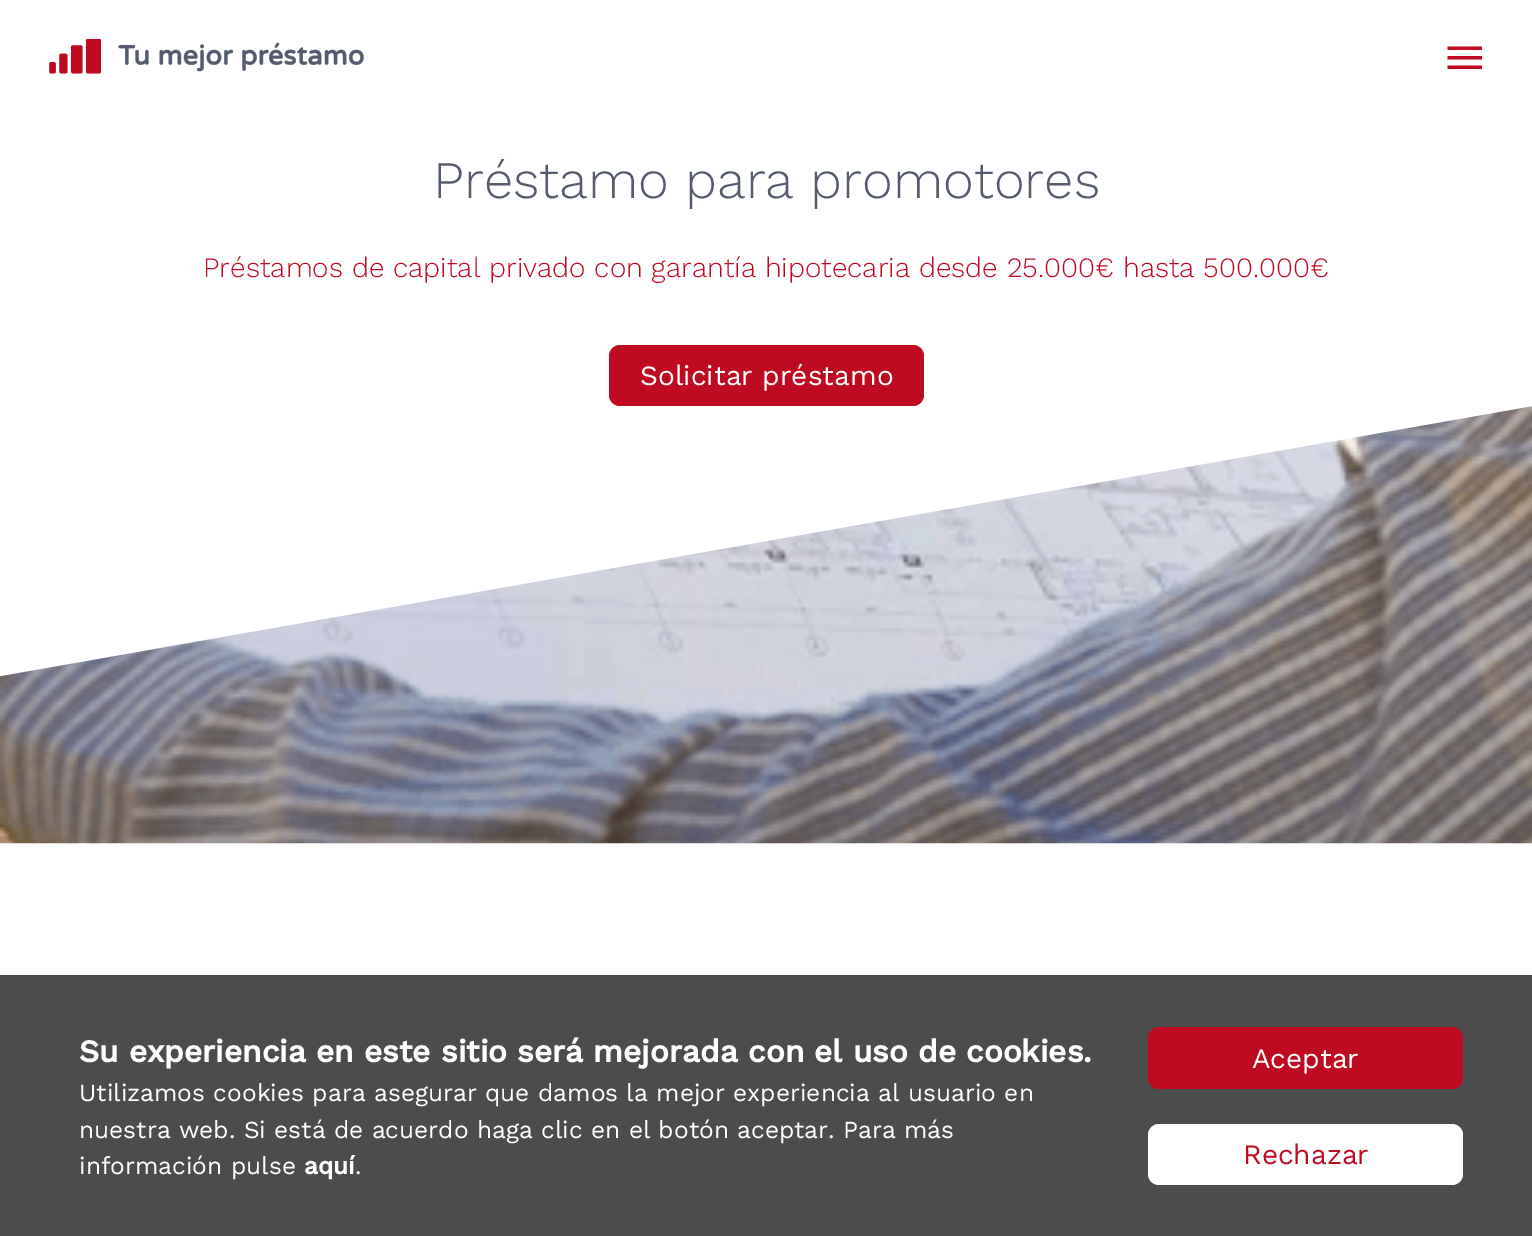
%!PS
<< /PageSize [1532 1236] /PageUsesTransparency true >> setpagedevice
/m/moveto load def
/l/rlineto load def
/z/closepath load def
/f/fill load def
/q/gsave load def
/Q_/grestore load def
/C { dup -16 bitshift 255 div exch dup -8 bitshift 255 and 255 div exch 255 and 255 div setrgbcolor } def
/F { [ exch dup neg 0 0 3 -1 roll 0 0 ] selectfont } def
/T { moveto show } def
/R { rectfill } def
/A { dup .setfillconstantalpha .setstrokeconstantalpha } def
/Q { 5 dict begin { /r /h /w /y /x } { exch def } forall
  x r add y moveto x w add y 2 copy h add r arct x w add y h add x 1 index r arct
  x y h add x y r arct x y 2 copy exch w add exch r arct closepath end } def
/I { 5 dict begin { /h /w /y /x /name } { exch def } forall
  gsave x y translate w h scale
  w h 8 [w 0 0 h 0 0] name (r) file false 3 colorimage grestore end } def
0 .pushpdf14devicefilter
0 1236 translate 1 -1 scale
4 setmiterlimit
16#FFFFFF C
0 0 1532 1236 R
(1.rgb) 49 39 315 35 I
16#BE0B22 C
1447.5 46.5 m 34.5 0 l 0 3.5 l -34.5 0 l z 1447.5 59.5 m 0 -3.5 l 34.5 0 l 0 3.5 l z 1447.5 69 m 0 -3.5 l 34.5 0 l 0 3.5 l z f
/WorkSans-Light 52.5 F
16#535B6C C
(Préstamo para promotores) 433 198 T
/WorkSans-Light 28 F
16#BE0B22 C
(Préstamos de capital privado con garantía hipotecaria desde 25.000€ hasta 500.000€) 203 277 T
609 345 315 61 11 Q f
/WorkSans-Regular 28 F
16#FFFFFF C
(Solicitar préstamo) 640 385 T
(2.rgb) 0 406 1532 438 I
q
0 406 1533 438 rectclip
-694 354 m 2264 -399 l 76 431 l -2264 399 l z f
Q_
0.7 A
16#000000 C
0 975 1532 261 R
/WorkSans-Bold 31.5 F
1 A
16#FFFFFF C
(Su experiencia en este sitio será mejorada con el uso de cookies.) 79 1062 T
/WorkSans-Regular 24.5 F
(Utilizamos cookies para asegurar que damos la mejor experiencia al usuario en) 79 1101 T
(nuestra web. Si está de acuerdo haga clic en el botón aceptar. Para más) 79 1138 T
(información pulse) 79 1174 T
/WorkSans-Bold 24.5 F
(aquí) 304 1174 T
/WorkSans-Regular 24.5 F
(.) 355 1174 T
16#BE0B22 C
1148 1027 315 62 11 Q f
/WorkSans-Regular 28 F
16#FFFFFF C
(Aceptar) 1252 1068 T
1148 1124 315 61 11 Q f
16#BE0B22 C
(Rechazar) 1243 1164 T
.poppdf14devicefilter showpage
